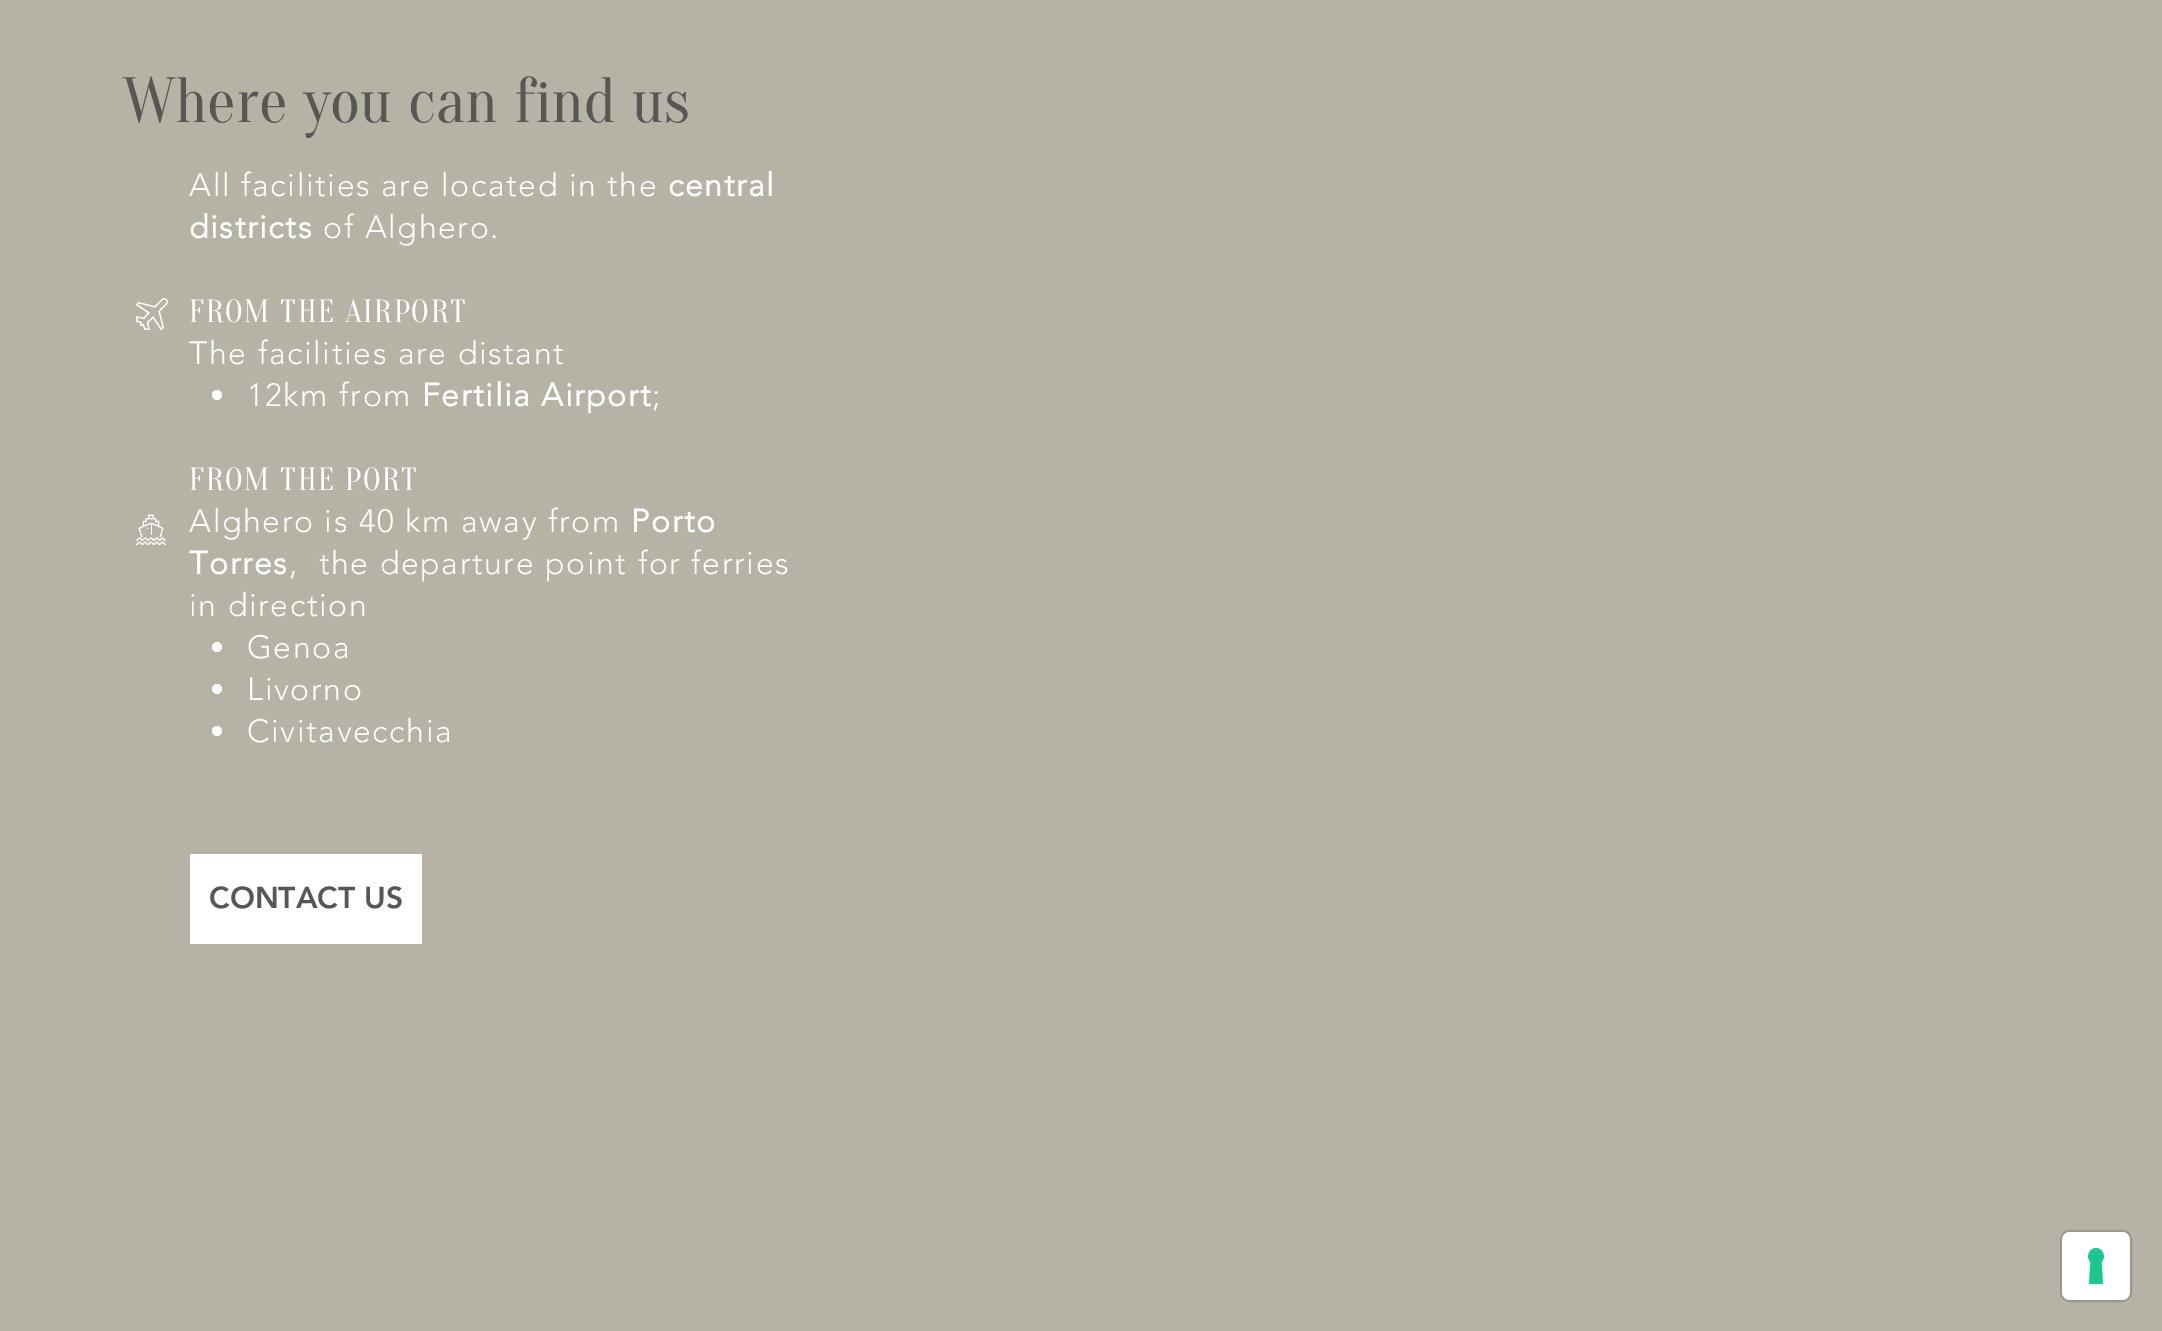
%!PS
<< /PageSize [2162 1331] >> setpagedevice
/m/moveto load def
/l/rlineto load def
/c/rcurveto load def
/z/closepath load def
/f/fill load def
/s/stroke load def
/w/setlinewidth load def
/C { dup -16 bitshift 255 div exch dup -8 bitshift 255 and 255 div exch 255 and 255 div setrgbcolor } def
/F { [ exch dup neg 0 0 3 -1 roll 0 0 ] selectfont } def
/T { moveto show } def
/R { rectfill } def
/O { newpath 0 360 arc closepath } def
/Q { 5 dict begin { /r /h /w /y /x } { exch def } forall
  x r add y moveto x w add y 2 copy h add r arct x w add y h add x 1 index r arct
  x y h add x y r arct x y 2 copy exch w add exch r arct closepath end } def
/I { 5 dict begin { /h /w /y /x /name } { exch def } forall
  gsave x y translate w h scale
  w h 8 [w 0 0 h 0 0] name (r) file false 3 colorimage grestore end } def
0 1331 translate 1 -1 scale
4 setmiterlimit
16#B6B2A6 C
0 0 2162 1331 R
/Oranienbaum-Regular 64 F
16#575756 C
(Where you can find us) 123 122 T
(1.rgb) 136 298 32 32 I
/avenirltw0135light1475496-Light 32 F
16#FFFFFF C
189 196 m 1.6 0 (All facilities are located in the) ashow
/avenirltw0135light1475496-Bold 32 F
668 196 m 1.6 0 (central) ashow
189 238 m 1.6 0 (districts) ashow
/avenirltw0135light1475496-Light 32 F
323 238 m 1.6 0 (of Alghero.) ashow
/Oranienbaum-Regular 32 F
189 322 m 1.6 0 (FROM THE AIRPORT) ashow
/avenirltw0135light1475496-Light 32 F
189 364 m 1.6 0 (The facilities are distant) ashow
217 395 5 O f
247 406 m 1.6 0 (12km from) ashow
/avenirltw0135light1475496-Bold 32 F
422 406 m 1.6 0 (Fertilia Airport) ashow
/avenirltw0135light1475496-Light 32 F
652 406 m 1.6 0 (;) ashow
/Oranienbaum-Regular 32 F
189 490 m 1.6 0 (FROM THE PORT) ashow
/avenirltw0135light1475496-Light 32 F
189 532 m 1.6 0 (Alghero is 40 km away from) ashow
/avenirltw0135light1475496-Bold 32 F
631 532 m 1.6 0 (Porto) ashow
189 574 m 1.6 0 (Torres) ashow
/avenirltw0135light1475496-Light 32 F
289 574 m 1.6 0 (,  the departure point for ferries) ashow
189 616 m 1.6 0 (in direction) ashow
217 647 5 O f
247 658 m 1.6 0 (Genoa) ashow
217 689 5 O f
247 700 m 1.6 0 (Livorno) ashow
217 731 5 O f
247 742 m 1.6 0 (Civitavecchia) ashow
(2.rgb) 136 514 30 32 I
190 854 232 90 R
/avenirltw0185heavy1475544-Black 30 F
16#575756 C
(CONTACT US) 209 908 T
16#9B978D C
2 w
2061 1231 70 70 9 Q s
16#FFFFFF C
2062 1232 68 68 8 Q f
16#1CC691 C
2096 1248 m 7 0 10.5 9.5 5.5 14 c 1.5 22 l -14 0 l 1.5 -22 l -5 -4.5 -1.5 -14 5.5 -14 c z eofill
showpage
